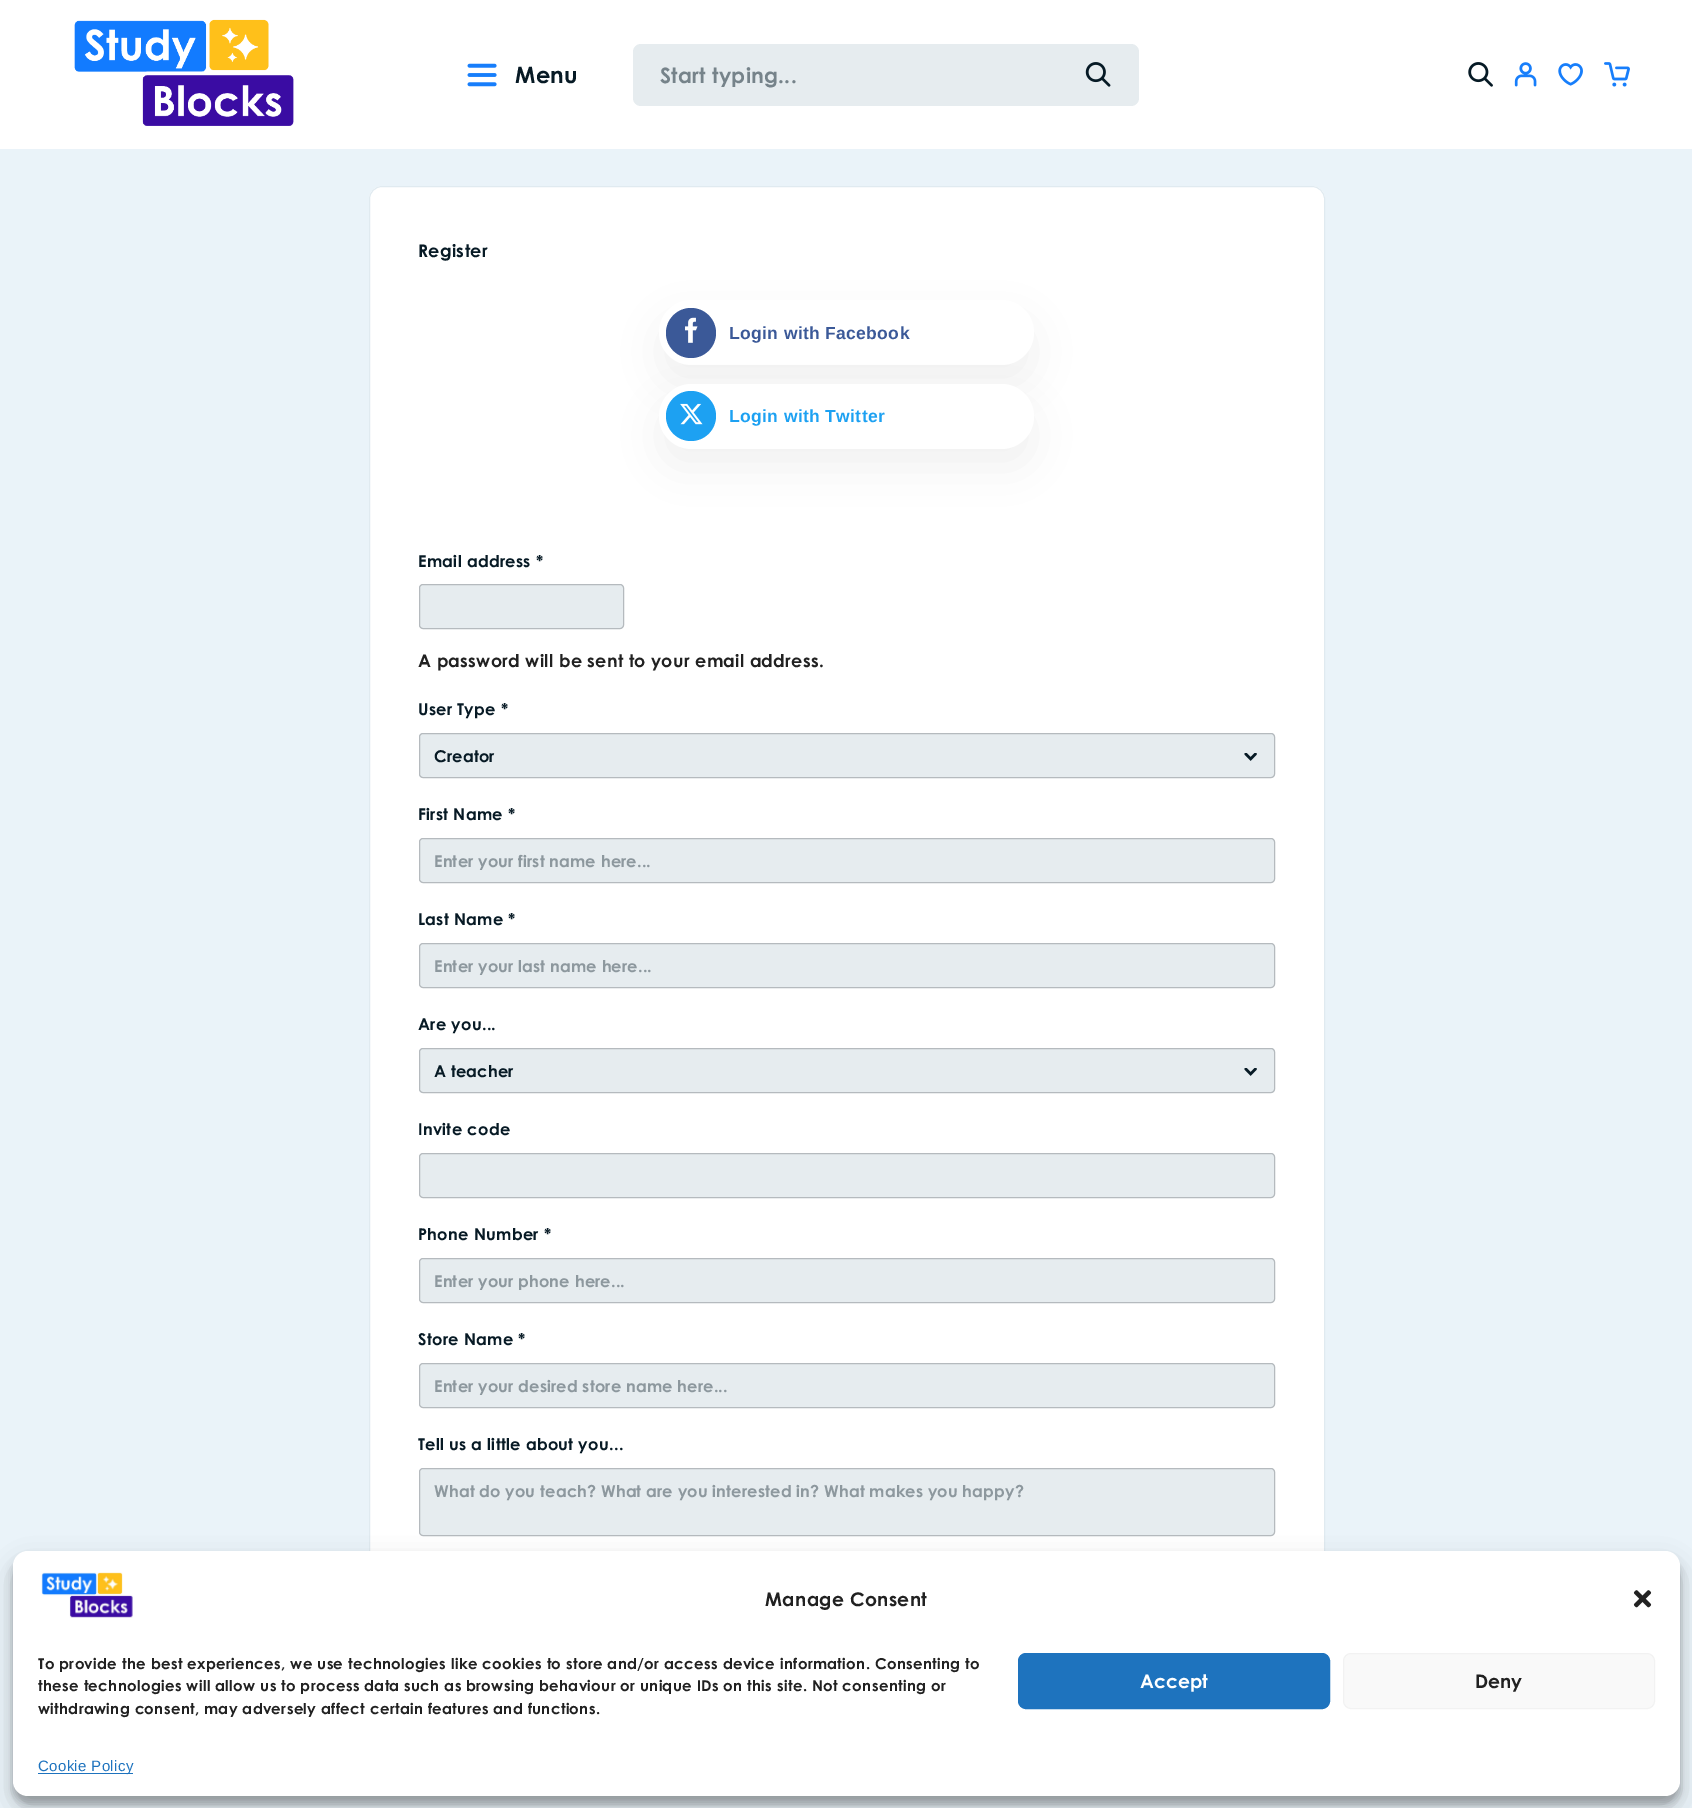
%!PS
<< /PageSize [1692 1808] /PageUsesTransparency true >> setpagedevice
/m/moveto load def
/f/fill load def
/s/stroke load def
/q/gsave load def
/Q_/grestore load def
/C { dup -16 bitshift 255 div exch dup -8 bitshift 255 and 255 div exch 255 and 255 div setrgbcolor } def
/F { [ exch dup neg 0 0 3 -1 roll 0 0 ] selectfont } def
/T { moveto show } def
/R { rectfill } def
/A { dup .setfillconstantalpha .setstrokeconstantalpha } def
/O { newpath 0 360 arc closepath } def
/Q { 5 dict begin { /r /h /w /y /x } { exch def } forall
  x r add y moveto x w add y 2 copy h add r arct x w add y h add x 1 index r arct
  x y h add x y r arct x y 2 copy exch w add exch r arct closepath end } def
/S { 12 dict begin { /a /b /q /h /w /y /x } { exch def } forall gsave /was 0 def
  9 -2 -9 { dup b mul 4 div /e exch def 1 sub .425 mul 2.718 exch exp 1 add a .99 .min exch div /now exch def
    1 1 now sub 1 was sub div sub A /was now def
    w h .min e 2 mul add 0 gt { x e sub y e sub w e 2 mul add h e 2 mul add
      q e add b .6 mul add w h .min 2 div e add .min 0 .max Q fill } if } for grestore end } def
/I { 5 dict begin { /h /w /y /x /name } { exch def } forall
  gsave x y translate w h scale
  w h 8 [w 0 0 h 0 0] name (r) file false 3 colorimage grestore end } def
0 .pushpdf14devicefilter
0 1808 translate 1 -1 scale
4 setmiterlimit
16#EAF3F9 C
0 0 1692 1808 R
16#FFFFFF C
0 0 1692 149 R
(1.rgb) 74 19 220 107 I
(2.rgb) 467 63 30 24 I
/CenturyGothic-Bold 22.5 F
16#071A25 C
515 83 m .35 0 (Menu) ashow
16#E6ECEF C
633 44 506 62 8 Q f
/CenturyGothic-Bold 21.25 F
16#76838A C
660 83 m .25 0 (Start typing...) ashow
(3.rgb) 1085 62 26 25 I
(4.rgb) 1468 62 25 25 I
(5.rgb) 1514 62 23 25 I
(6.rgb) 1558 63 25 23 I
(7.rgb) 1604 62 26 25 I
16#FFFFFF C
369 186 956 1565 13 Q f
16#000000 C
659 319 375 65 32.5 22 .06 S
16#FFFFFF C
659 300 375 65 32.5 Q f
16#3B5998 C
691 333 25 O f
(8.rgb) 685 317 13 26 I
16#000000 C
659 403 375 65 32.5 22 .06 S
16#FFFFFF C
659 384 375 65 32.5 Q f
16#1DA1F2 C
691 416 25 O f
(9.rgb) 680 403 23 22 I
16#E6ECEF C
419.5 584.5 204 44 3.5 Q q f Q_
16#B5BABE C
s
16#E6ECEF C
419 733 856 45 4 Q f
(10.rgb) 1244 753 13 8 I
16#B5BABE C
419.5 733.5 855 44 3.5 Q s
16#E6ECEF C
419.5 838.5 855 44 3.5 Q q f Q_
16#B5BABE C
s
16#E6ECEF C
419.5 943.5 855 44 3.5 Q q f Q_
16#B5BABE C
s
16#E6ECEF C
419 1048 856 45 4 Q f
(10.rgb) 1244 1068 13 8 I
16#B5BABE C
419.5 1048.5 855 44 3.5 Q s
16#E6ECEF C
419.5 1153.5 855 44 3.5 Q q f Q_
16#B5BABE C
s
16#E6ECEF C
419.5 1258.5 855 44 3.5 Q q f Q_
16#B5BABE C
s
16#E6ECEF C
419.5 1363.5 855 44 3.5 Q q f Q_
16#B5BABE C
s
16#E6ECEF C
419.5 1468.5 855 67 3.5 Q q f Q_
16#B5BABE C
s
16#E0EAF0 C
369.5 186.5 955 1564 12.5 Q s
/CenturyGothic-Bold 17.5 F
16#071A25 C
418 257 m .35 0 (Register) ashow
/LiberationSans-Bold 17.5 F
16#3B5998 C
729 339 m .35 0 (Login with Facebook) ashow
16#1DA1F2 C
729 422 m .35 0 (Login with Twitter) ashow
/CenturyGothic-Bold 16.25 F
16#071A25 C
418 567 m .3 0 (Email address *) ashow
/CenturyGothic-Bold 17.5 F
16#212121 C
418 667 m .35 0 (A password will be sent to your email address.) ashow
/CenturyGothic-Bold 16.25 F
16#071A25 C
418 715 m .3 0 (User Type *) ashow
434 762 m .15 0 (Creator) ashow
418 820 m .3 0 (First Name *) ashow
q
435 850 824 20 rectclip
16#8D989E C
434 867 m .15 0 (Enter your first name here...) ashow
Q_
418 925 m .3 0 (Last Name *) ashow
q
435 955 824 20 rectclip
16#8D989E C
434 972 m .15 0 (Enter your last name here...) ashow
Q_
418 1030 m .3 0 (Are you...) ashow
434 1077 m .15 0 (A teacher) ashow
418 1135 m .3 0 (Invite code) ashow
418 1240 m .3 0 (Phone Number *) ashow
q
435 1270 824 20 rectclip
16#8D989E C
434 1287 m .15 0 (Enter your phone here...) ashow
Q_
418 1345 m .3 0 (Store Name *) ashow
q
435 1375 824 20 rectclip
16#8D989E C
434 1392 m .15 0 (Enter your desired store name here...) ashow
Q_
418 1450 m .3 0 (Tell us a little about you...) ashow
16#8D989E C
434 1497 m .15 0 (What do you teach? What are you interested in? What makes you happy?) ashow
16#000000 C
13 1559 1667 245 15 4 .23 S
13 1564 1667 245 15 12.5 .19 S
16#FFFFFF C
13 1551 1667 245 15 Q f
(11.rgb) 41 1572 92 46 I
/CenturyGothic-Bold 18.75 F
16#212121 C
765 1606 m .35 0 (Manage Consent) ashow
(12.rgb) 1633 1590 19 18 I
q
38 1653 967 73 rectclip
/CenturyGothic-Bold 15 F
38 1669 m .35 0 (To provide the best experiences, we use technologies like cookies to store and/or access device information. Consenting to) ashow
Q_
/CenturyGothic-Bold 15 F
38 1691 m .35 0 (these technologies will allow us to process data such as browsing behaviour or unique IDs on this site. Not consenting or) ashow
38 1714 m .35 0 (withdrawing consent, may adversely affect certain features and functions.) ashow
16#1E73BE C
1018.5 1653.5 311 55 7.5 Q q f Q_
s
/CenturyGothic-Bold 18.75 F
16#FFFFFF C
(Accept) 1140 1688 T
16#F9F9F9 C
1343.5 1653.5 311 55 7.5 Q q f Q_
16#F2F2F2 C
s
16#212121 C
(Deny) 1475 1688 T
16#1E73BE C
38 1773 95 1 R
/LiberationSans-Regular 15 F
38 1771 m .35 0 (Cookie Policy) ashow
.poppdf14devicefilter showpage
